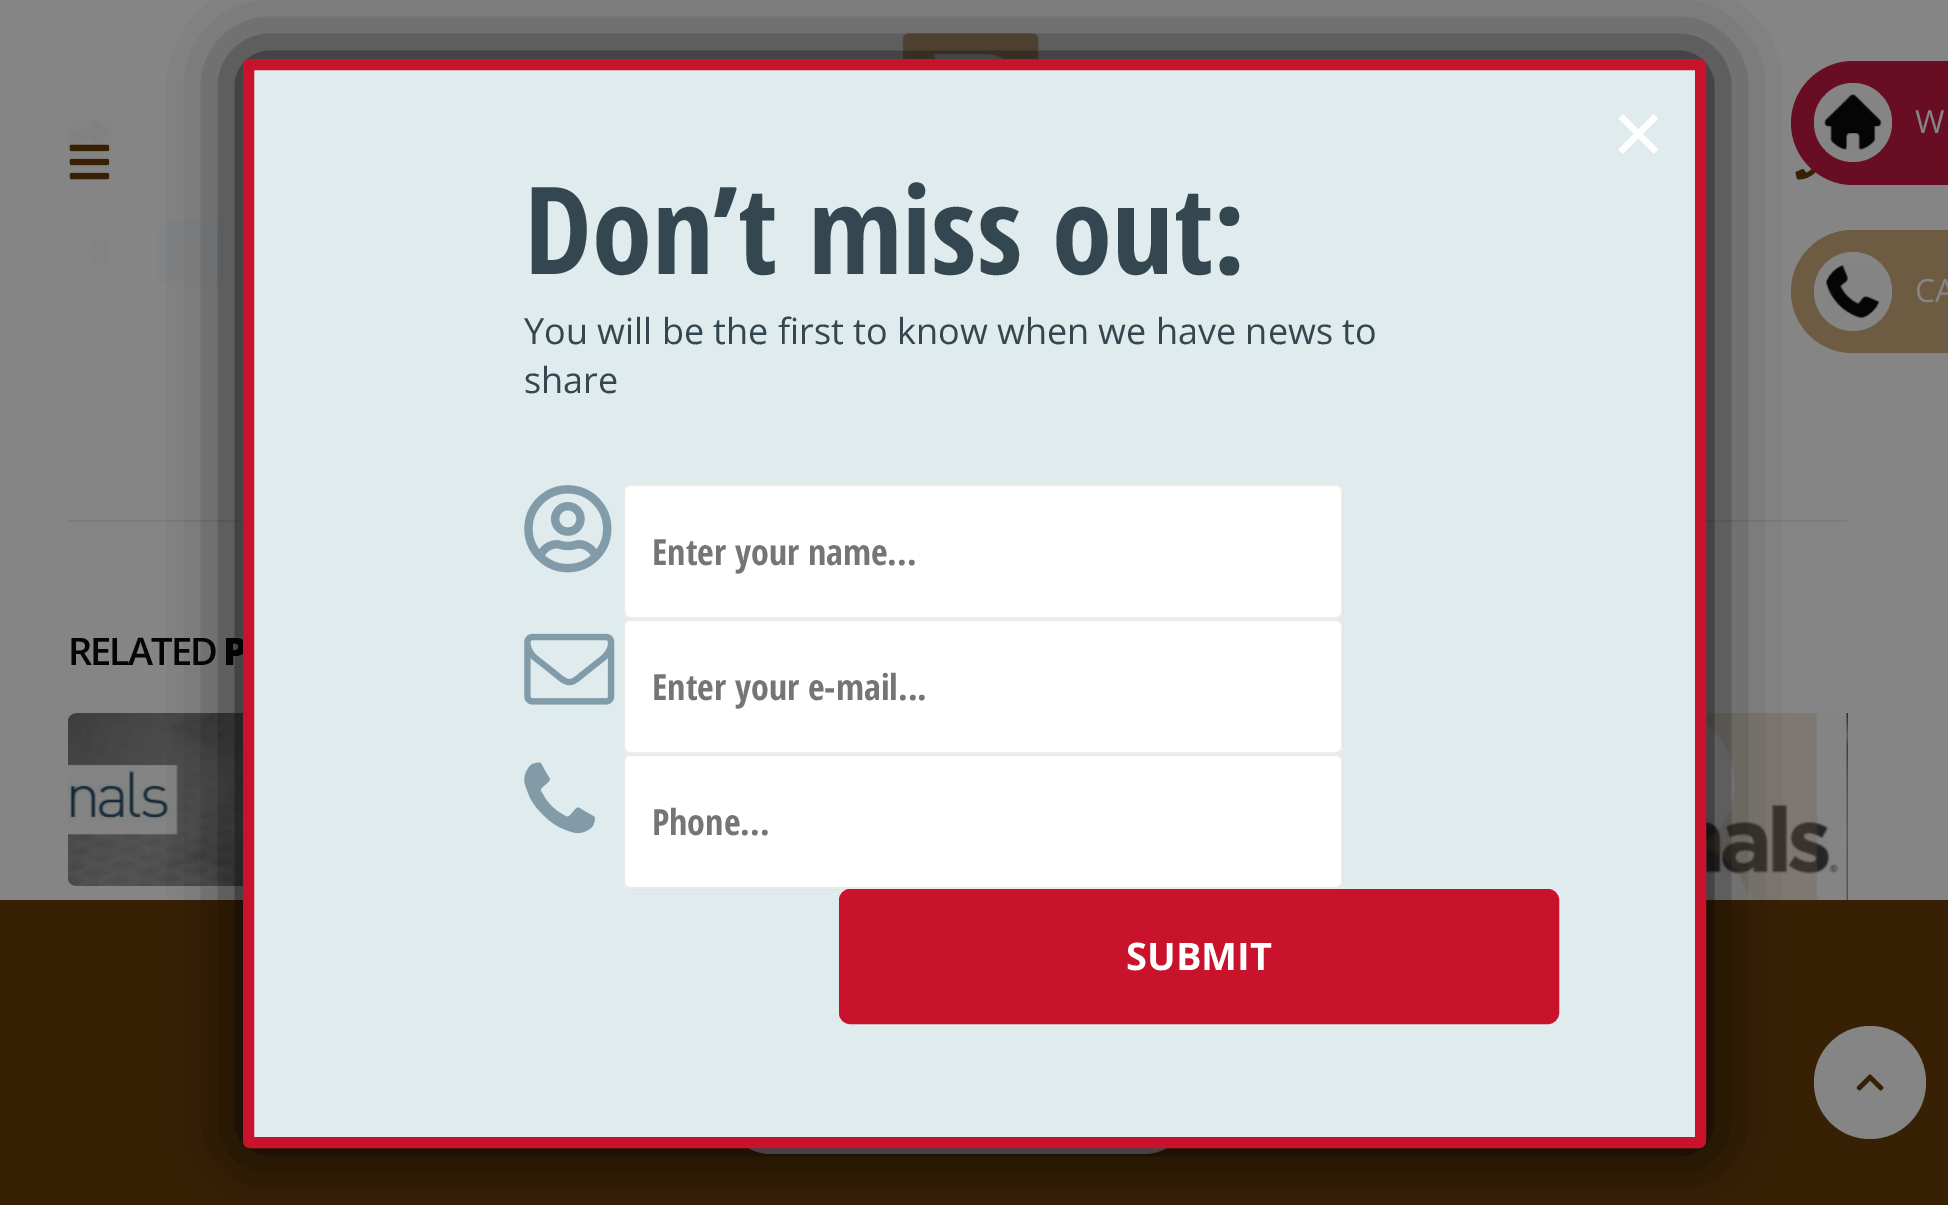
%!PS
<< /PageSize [1948 1205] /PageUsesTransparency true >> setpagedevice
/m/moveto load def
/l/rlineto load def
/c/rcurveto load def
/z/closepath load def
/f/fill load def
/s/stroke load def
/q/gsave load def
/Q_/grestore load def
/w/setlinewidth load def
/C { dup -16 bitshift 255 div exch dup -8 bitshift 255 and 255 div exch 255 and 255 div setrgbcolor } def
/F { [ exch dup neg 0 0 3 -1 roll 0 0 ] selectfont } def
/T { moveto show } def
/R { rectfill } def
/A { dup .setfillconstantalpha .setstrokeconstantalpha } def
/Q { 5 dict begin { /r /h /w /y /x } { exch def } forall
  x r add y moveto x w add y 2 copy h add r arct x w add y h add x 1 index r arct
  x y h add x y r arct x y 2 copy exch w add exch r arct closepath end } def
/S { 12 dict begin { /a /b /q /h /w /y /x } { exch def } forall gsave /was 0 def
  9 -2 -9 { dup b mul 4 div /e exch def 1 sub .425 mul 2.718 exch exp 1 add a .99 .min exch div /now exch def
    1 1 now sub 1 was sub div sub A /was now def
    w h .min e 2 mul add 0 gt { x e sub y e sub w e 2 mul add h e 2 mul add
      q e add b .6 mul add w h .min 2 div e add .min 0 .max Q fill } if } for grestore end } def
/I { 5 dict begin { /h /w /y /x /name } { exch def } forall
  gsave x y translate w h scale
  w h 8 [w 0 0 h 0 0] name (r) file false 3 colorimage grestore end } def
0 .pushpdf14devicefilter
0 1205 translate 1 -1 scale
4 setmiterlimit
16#858585 C
0 0 1948 1205 R
(1.rgb) 902 33 137 26 I
(4.rgb) 67 118 45 39 I
(2.rgb) 69 144 41 36 I
(3.rgb) 1795 168 21 12 I
(5.rgb) 92 238 16 30 I
16#818384 C
158 221 65 65 9 Q f
(6.rgb) 177 241 26 25 I
16#7B7B7B C
68 520 1779 2 R
/OpenSans-SemiBold 38 F
16#050505 C
68 665 m -2 0 (RELATED) ashow
/OpenSans-ExtraBold 38 F
223 665 m -2 0 (P) ashow
(7.rgb) 68 713 175 173 I
(8.rgb) 1706 713 142 187 I
16#680D23 C
1853 61 m 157 0 l 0 124 l -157 0 l -34 0 -62 -28 -62 -62 c 0 -34 28 -62 62 -62 c z f
16#6D5B42 C
1852.5 230 m 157.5 0 l 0 123 l -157.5 0 l -34 0 -61.5 -27.5 -61.5 -61.5 c 0 -34 27.5 -61.5 61.5 -61.5 c z f
16#382005 C
0 900 1948 305 R
16#858585 C
727 1067 461 87 43.5 Q f
16#020202 C
243 59 1463 1089 7 34 1 S
16#DFEBED C
248.5 64.5 1452 1078 1.5 Q q f Q_
16#C9122B C
11 w
s
/LiberationSans-Regular 90 F
16#FFFFFF C
(×) 1612 164 T
/OpenSansCondensed-Bold 121.5 F
16#344750 C
(Don’t miss out:) 524 274 T
/OpenSans-Regular 36 F
(You will be the first to know when we have news to) 524 344 T
(share) 524 393 T
(9.rgb) 524 485 88 88 I
16#FFFFFF C
623 484 720 135 7 Q f
0.08 A
16#000000 C
2 w
624 485 718 133 6 Q s
/OpenSansCondensed-Bold 36 F
1 A
16#757575 C
(Enter your name...) 652 565 T
(10.rgb) 524 633 91 72 I
16#FFFFFF C
623 619 720 135 7 Q f
0.08 A
16#000000 C
624 620 718 133 6 Q s
1 A
16#757575 C
(Enter your e-mail...) 652 700 T
(11.rgb) 524 762 71 72 I
16#FFFFFF C
623 754 720 135 7 Q f
0.08 A
16#000000 C
624 755 718 133 6 Q s
1 A
16#757575 C
(Phone...) 652 835 T
16#C9122B C
840 890 718 133 10 Q q f Q_
s
/OpenSans-Bold 38 F
16#FFFFFF C
(SUBMIT) 1126 970 T
16#858585 C
1814 83 78 79 39 Q f
(12.rgb) 1824 94 58 56 I
/OpenSans-Regular 32 F
(W) 1915 133 T
1814 252 78 79 39 Q f
(13.rgb) 1826 265 54 54 I
(CA) 1915 302 T
1814 1026 112 113 56 Q f
(14.rgb) 1856 1074 28 17 I
.poppdf14devicefilter showpage
